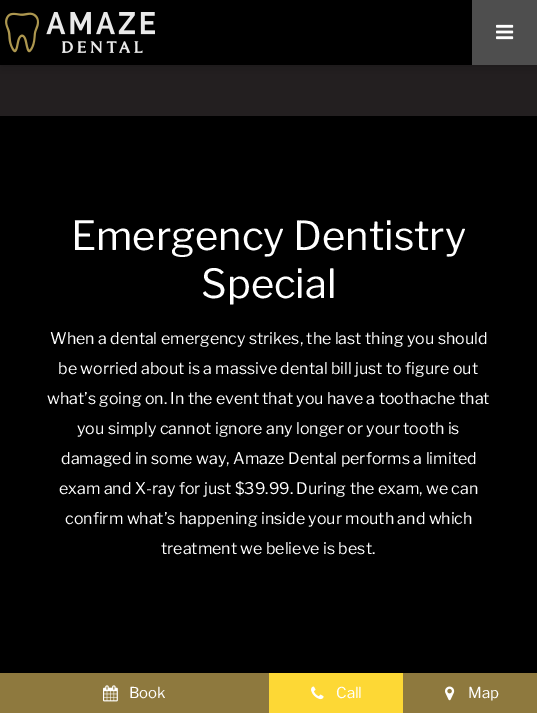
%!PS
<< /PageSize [537 713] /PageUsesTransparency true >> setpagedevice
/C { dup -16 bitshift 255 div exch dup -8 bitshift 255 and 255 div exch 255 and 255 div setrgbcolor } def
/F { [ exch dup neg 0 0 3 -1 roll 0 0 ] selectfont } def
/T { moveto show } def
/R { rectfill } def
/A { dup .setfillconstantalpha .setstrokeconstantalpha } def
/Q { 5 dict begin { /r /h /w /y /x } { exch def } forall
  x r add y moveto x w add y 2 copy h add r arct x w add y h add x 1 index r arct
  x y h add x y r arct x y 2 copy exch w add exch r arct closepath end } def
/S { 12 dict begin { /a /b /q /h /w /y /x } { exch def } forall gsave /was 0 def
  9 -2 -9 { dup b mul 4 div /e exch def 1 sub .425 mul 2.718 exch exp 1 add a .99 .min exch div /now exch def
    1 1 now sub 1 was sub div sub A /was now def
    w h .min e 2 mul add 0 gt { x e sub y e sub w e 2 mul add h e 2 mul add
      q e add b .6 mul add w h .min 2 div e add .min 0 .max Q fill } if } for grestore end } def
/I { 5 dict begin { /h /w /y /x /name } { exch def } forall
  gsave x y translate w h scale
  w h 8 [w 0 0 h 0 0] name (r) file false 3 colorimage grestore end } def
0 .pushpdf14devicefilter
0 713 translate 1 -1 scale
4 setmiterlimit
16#231F20 C
0 0 537 713 R
16#000000 C
0 0 537 65 0 7.5 .3 S
0 0 472 65 R
(1.rgb) 5 12 150 41 I
16#4E4E4E C
472 0 65 65 R
(2.rgb) 496 24 18 16 I
16#000000 C
0 116 537 557 R
/LibreFranklin-Thin 40 F
16#FFFFFF C
(Emergency Dentistry) 71 250 T
(Special) 201 298 T
/LibreFranklin-Thin 16 F
(When a dental emergency strikes, the last thing you should) 50 344 T
(be worried about is a massive dental bill just to figure out) 58 374 T
(what’s going on. In the event that you have a toothache that) 47 404 T
(you simply cannot ignore any longer or your tooth is) 77 434 T
(damaged in some way, Amaze Dental performs a limited) 61 464 T
(exam and X-ray for just $39.99. During the exam, we can) 59 494 T
(confirm what’s happening inside your mouth and which) 65 524 T
(treatment we believe is best.) 161 554 T
16#8E793E C
0 673 269 40 R
(3.rgb) 103 685 15 17 I
/LibreFranklin-Thin 15 F
16#FFFFFF C
(Book) 129 698 T
16#FDD835 C
269 673 134 40 R
(4.rgb) 311 686 13 14 I
16#FFFFFF C
(Call) 336 698 T
16#8E793E C
403 673 134 40 R
(5.rgb) 445 686 10 15 I
16#FFFFFF C
(Map) 468 698 T
.poppdf14devicefilter showpage
